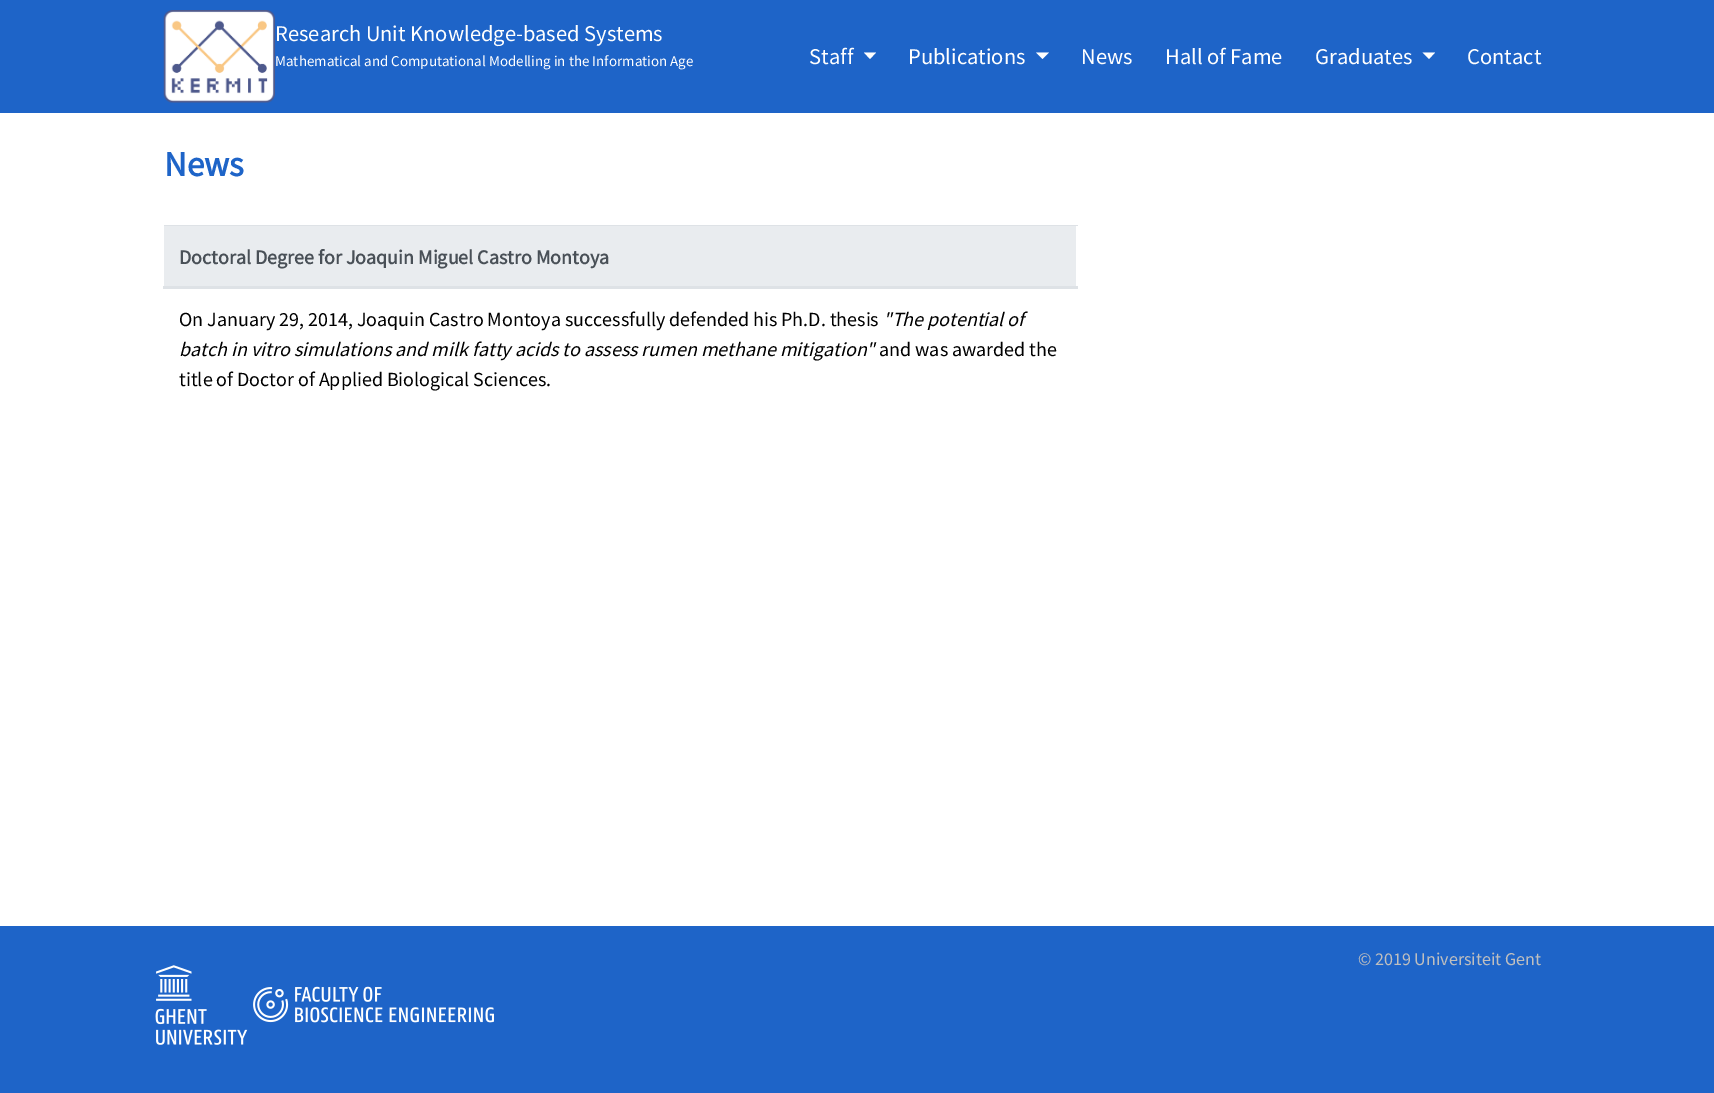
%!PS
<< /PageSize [1714 1093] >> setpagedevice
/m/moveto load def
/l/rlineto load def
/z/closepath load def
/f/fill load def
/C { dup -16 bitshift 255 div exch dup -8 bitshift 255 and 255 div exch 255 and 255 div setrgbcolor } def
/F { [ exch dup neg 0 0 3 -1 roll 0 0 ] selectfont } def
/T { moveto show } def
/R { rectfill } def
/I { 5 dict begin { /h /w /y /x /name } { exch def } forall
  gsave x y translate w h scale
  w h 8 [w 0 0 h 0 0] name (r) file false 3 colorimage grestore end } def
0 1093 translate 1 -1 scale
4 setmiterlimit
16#FFFFFF C
0 0 1714 1093 R
16#1E64C8 C
0 0 1714 113 R
(1.rgb) 163 10 112 93 I
/SourceSansPro-Regular 22.5 F
16#FFFFFF C
(Research Unit Knowledge-based Systems) 275 41 T
/SourceSansPro-Regular 15 F
(Mathematical and Computational Modelling in the Information Age) 275 66 T
/SourceSansPro-Regular 22.5 F
(Staff) 809 64 T
864 52.5 m 12 0 l -6 6.5 l z f
(Publications) 908 64 T
1036 52.5 m 13 0 l -6.5 6.5 l z f
(News) 1081 64 T
(Hall of Fame) 1165 64 T
(Graduates) 1315 64 T
1422.5 52.5 m 12.5 0 l -6 6.5 l z f
(Contact) 1467 64 T
/SourceSansPro-Bold 35 F
16#1E64C8 C
(News) 164 176 T
16#E9ECEF C
164 226 912 60 R
16#DEE2E6 C
164 225 914 1 R
163 286 915 3 R
/SourceSansPro-Bold 20 F
16#495057 C
(Doctoral Degree for Joaquin Miguel Castro Montoya) 179 264 T
/SourceSansPro-Regular 20 F
16#000000 C
(On January 29, 2014, Joaquin Castro Montoya successfully defended his Ph.D. thesis) 179 326 T
/SourceSansPro-Italic 20 F
("The potential of) 883 326 T
(batch in vitro simulations and milk fatty acids to assess rumen methane mitigation") 179 356 T
/SourceSansPro-Regular 20 F
(and was awarded the) 879 356 T
(title of Doctor of Applied Biological Sciences.) 179 386 T
16#1E64C8 C
0 926 1714 167 R
/SourceSansPro-Regular 18 F
16#BFBFBF C
(© 2019 Universiteit Gent) 1358 965 T
(2.rgb) 155 965 93 80 I
(3.rgb) 253 986 241 37 I
showpage
